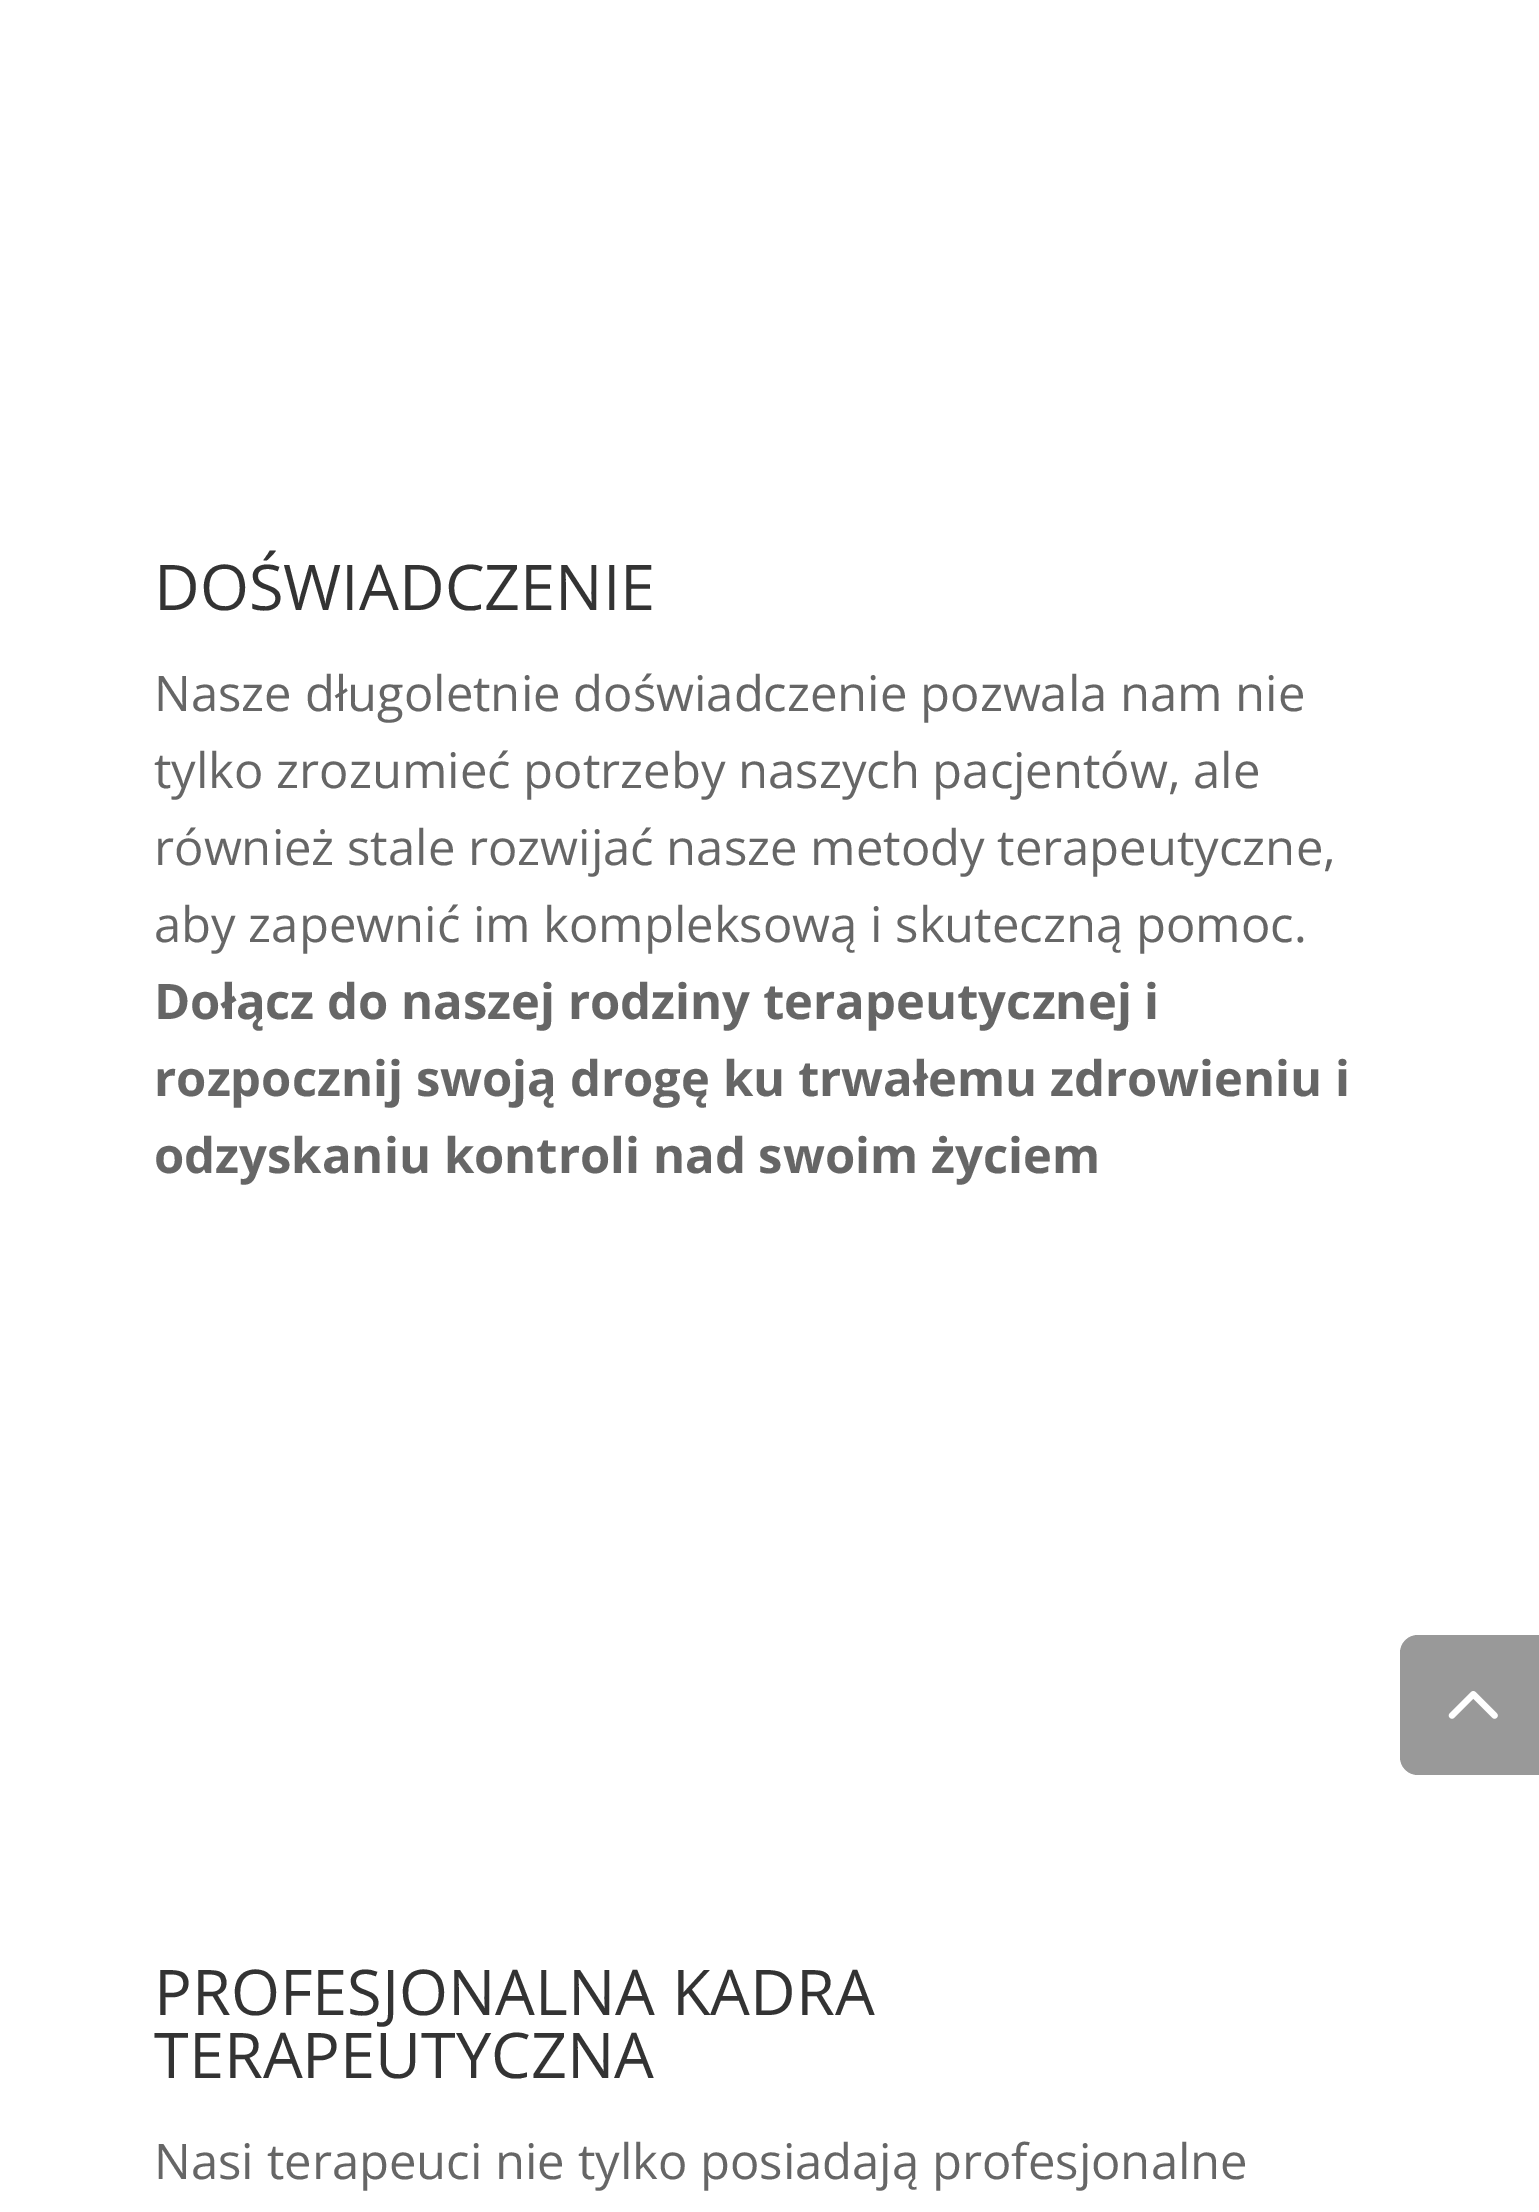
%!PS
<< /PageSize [1539 2212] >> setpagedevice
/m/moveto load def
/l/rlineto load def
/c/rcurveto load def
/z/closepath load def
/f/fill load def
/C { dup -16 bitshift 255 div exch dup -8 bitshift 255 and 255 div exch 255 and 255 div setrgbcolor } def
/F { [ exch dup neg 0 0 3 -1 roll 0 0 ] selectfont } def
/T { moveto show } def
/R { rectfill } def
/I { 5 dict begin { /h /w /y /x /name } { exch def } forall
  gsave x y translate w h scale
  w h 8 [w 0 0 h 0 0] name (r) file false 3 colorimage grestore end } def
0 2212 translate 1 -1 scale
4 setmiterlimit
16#FFFFFF C
0 0 1539 2212 R
/OpenSans-Regular 63 F
16#333333 C
(DOŚWIADCZENIE) 154 610 T
/OpenSans-Regular 49 F
16#666666 C
(Nasze długoletnie doświadczenie pozwala nam nie) 154 711 T
(tylko zrozumieć potrzeby naszych pacjentów, ale) 154 788 T
(również stale rozwijać nasze metody terapeutyczne,) 154 865 T
(aby zapewnić im kompleksową i skuteczną pomoc.) 154 942 T
/OpenSans-Bold 49 F
(Dołącz do naszej rodziny terapeutycznej i) 154 1019 T
(rozpocznij swoją drogę ku trwałemu zdrowieniu i) 154 1096 T
(odzyskaniu kontroli nad swoim życiem) 154 1173 T
/OpenSans-Regular 63 F
16#333333 C
(PROFESJONALNA KADRA) 154 2015 T
(TERAPEUTYCZNA) 154 2078 T
/OpenSans-Regular 49 F
16#666666 C
(Nasi terapeuci nie tylko posiadają profesjonalne) 154 2179 T
16#999999 C
1418 1635 m 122 0 l 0 140 l -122 0 l -10 0 -18 -8 -18 -18 c 0 -104 l 0 -10 8 -18 18 -18 c z f
(1.rgb) 1448 1691 50 28 I
showpage
